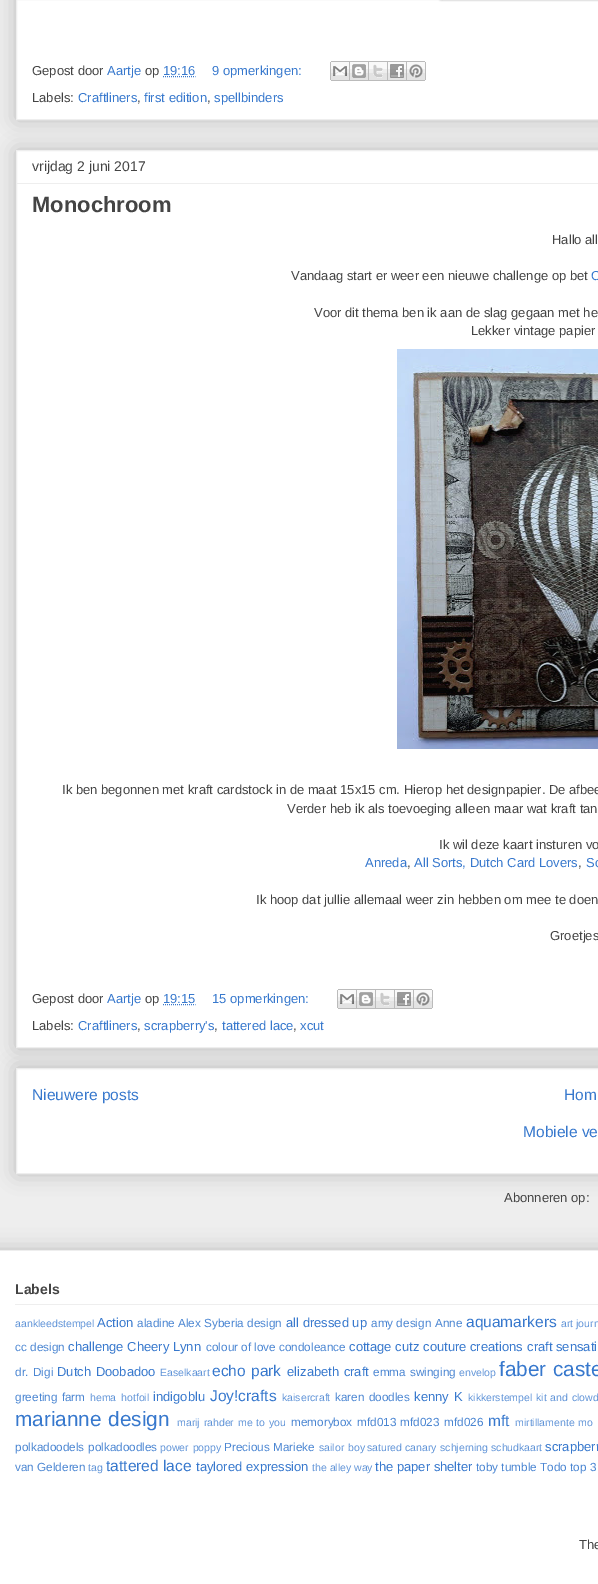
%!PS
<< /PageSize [598 1584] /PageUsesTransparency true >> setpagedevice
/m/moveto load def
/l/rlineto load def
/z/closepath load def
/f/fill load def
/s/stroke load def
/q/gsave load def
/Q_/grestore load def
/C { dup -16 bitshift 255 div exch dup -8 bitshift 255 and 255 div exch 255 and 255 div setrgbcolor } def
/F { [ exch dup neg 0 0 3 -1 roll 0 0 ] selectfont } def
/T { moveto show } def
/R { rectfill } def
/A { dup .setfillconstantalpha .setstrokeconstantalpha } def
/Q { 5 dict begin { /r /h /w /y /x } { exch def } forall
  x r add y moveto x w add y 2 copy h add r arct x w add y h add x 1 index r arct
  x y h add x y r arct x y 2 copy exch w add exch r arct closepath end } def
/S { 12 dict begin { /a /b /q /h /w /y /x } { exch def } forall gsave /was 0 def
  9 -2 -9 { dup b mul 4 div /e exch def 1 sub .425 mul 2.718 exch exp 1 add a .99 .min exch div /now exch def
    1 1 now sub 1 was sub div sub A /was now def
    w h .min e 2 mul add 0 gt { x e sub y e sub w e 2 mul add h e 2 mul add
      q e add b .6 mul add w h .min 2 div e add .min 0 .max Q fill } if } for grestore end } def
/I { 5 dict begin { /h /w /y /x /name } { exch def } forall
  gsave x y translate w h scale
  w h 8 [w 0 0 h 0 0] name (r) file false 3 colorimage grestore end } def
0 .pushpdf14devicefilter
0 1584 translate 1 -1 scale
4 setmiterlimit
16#EEEEEE C
0 0 598 1584 R
16#000000 C
16 -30 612 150 0 10 .2 S
16#FFFFFF C
16.5 -.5 m 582 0 l 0 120 l -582 0 l z q f Q_
16#EEEEEE C
s
(1.rgb) 438 0 160 2 I
/LiberationSans-Regular 13 F
16#444444 C
(Gepost door) 32 75 T
16#3778CD C
(Aartje) 107 75 T
16#444444 C
(op) 145 75 T
16#3778CD C
[1 1] 0 setdash
163 76.5 m 32.5 0 l s
(19:16) 163 75 T
(9 opmerkingen:) 212 75 T
(2.rgb) 330 61 20 20 I
(3.rgb) 350 61 19 20 I
(4.rgb) 369 61 19 20 I
(5.rgb) 388 61 19 20 I
(6.rgb) 407 61 19 20 I
16#444444 C
(Labels:) 32 102 T
16#3778CD C
(Craftliners) 78 102 T
16#444444 C
(,) 137 102 T
16#3778CD C
(first edition) 144 102 T
16#444444 C
(,) 207 102 T
16#3778CD C
(spellbinders) 214 102 T
16#000000 C
16 1068 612 106 0 10 .2 S
16#FFFFFF C
16.5 1068.5 m 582 0 l 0 105 l -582 0 l z q f Q_
16#EEEEEE C
[] 0 setdash
s
16#000000 C
16 150 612 898 0 10 .2 S
16#FFFFFF C
16.5 150.5 m 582 0 l 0 897 l -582 0 l z q f Q_
16#EEEEEE C
s
/LiberationSans-Regular 14 F
16#444444 C
(vrijdag 2 juni 2017) 32 171 T
16#EEEEEE C
17 183 581 1 R
/LiberationSans-Bold 22 F
16#444444 C
(Monochroom) 32 212 T
/LiberationSans-Regular 13 F
(Hallo all) 552 244 T
(Vandaag start er weer een nieuwe challenge op bet) 291 280 T
16#3778CD C
(C) 591 280 T
16#444444 C
(Voor dit thema ben ik aan de slag gegaan met he) 314 317 T
(Lekker vintage papier) 471 335 T
(7.rgb) 397 349 201 400 I
(Ik ben begonnen met kraft cardstock in de maat 15x15 cm. Hierop het designpapier. De afbee) 62 794 T
(Verder heb ik als toevoeging alleen maar wat kraft tan) 287 813 T
(Ik wil deze kaart insturen vo) 439 849 T
16#3778CD C
(Anreda) 365 867 T
16#444444 C
(,) 407 867 T
16#3778CD C
(All Sorts, Dutch Card Lovers) 414 867 T
16#444444 C
(,) 578 867 T
16#3778CD C
(Sc) 586 867 T
16#444444 C
(Ik hoop dat jullie allemaal weer zin hebben om mee te doen) 256 904 T
(Groetjes) 550 940 T
(Gepost door) 32 1003 T
16#3778CD C
(Aartje) 107 1003 T
16#444444 C
(op) 145 1003 T
16#3778CD C
[1 1] 0 setdash
163 1004.5 m 32.5 0 l s
(19:15) 163 1003 T
(15 opmerkingen:) 212 1003 T
(2.rgb) 337 989 20 20 I
(3.rgb) 357 989 19 20 I
(4.rgb) 376 989 19 20 I
(5.rgb) 395 989 19 20 I
(6.rgb) 414 989 19 20 I
16#444444 C
(Labels:) 32 1030 T
16#3778CD C
(Craftliners) 78 1030 T
16#444444 C
(,) 137 1030 T
16#3778CD C
(scrapberry's) 144 1030 T
16#444444 C
(,) 214 1030 T
16#3778CD C
(tattered lace) 222 1030 T
16#444444 C
(,) 293 1030 T
16#3778CD C
(xcut) 300 1030 T
/LiberationSans-Regular 15.5 F
(Nieuwere posts) 32 1100 T
(Hom) 564 1100 T
(Mobiele ve) 523 1137 T
/LiberationSans-Regular 13 F
16#444444 C
(Abonneren op:) 504 1202 T
16#000000 C
-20 1250 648 334 0 10 .2 S
16#FFFFFF C
0 1251 598 333 R
16#EEEEEE C
0 1250 598 1 R
/LiberationSans-Bold 14 F
16#444444 C
(Labels) 15 1294 T
16#EEEEEE C
15 1304 583 1 R
/LiberationSans-Regular 10.5 F
16#5F93D7 C
(aankleedstempel) 15 1327 T
/LiberationSans-Regular 13 F
16#3778CD C
(Action) 97 1327 T
/LiberationSans-Regular 11.75 F
16#4B86D2 C
(aladine) 137 1327 T
(Alex Syberia design) 178 1327 T
/LiberationSans-Regular 13 F
16#3778CD C
(all dressed up) 286 1327 T
/LiberationSans-Regular 11.75 F
16#4B86D2 C
(amy design) 371 1327 T
(Anne) 435 1327 T
/LiberationSans-Regular 15.5 F
16#3778CD C
(aquamarkers) 466 1327 T
/LiberationSans-Regular 10.5 F
16#5F93D7 C
(art journ) 561 1327 T
/LiberationSans-Regular 11.75 F
16#4B86D2 C
(cc design) 15 1351 T
/LiberationSans-Regular 13 F
16#3778CD C
(challenge Cheery Lynn) 68 1351 T
/LiberationSans-Regular 11.75 F
16#4B86D2 C
(colour of love) 206 1351 T
(condoleance) 279 1351 T
/LiberationSans-Regular 13 F
16#3778CD C
(cottage cutz) 349 1351 T
(couture creations) 423 1351 T
(craft sensati) 527 1351 T
/LiberationSans-Regular 11.75 F
16#4B86D2 C
15 1376 m 1 0 32 (dr. Digi) widthshow
/LiberationSans-Regular 13 F
16#3778CD C
57 1376 m 1 0 32 (Dutch Doobadoo) widthshow
/LiberationSans-Regular 10.5 F
16#5F93D7 C
(Easelkaart) 160 1376 T
/LiberationSans-Regular 15.5 F
16#3778CD C
212 1376 m 1 0 32 (echo park) widthshow
/LiberationSans-Regular 13 F
287 1376 m 1 0 32 (elizabeth craft) widthshow
/LiberationSans-Regular 11.75 F
16#4B86D2 C
373 1376 m 1 0 32 (emma swinging) widthshow
/LiberationSans-Regular 10.5 F
16#5F93D7 C
(envelop) 459 1376 T
/LiberationSans-Regular 20.75 F
16#3778CD C
499 1376 m 1 0 32 (faber caste) widthshow
/LiberationSans-Regular 11.75 F
16#4B86D2 C
15 1401 m 1 0 32 (greeting farm) widthshow
/LiberationSans-Regular 10.5 F
16#5F93D7 C
(hema) 90 1401 T
(hotfoil) 121 1401 T
/LiberationSans-Regular 13 F
16#3778CD C
(indigoblu) 153 1401 T
/LiberationSans-Regular 15.5 F
(Joy!crafts) 210 1401 T
/LiberationSans-Regular 10.5 F
16#5F93D7 C
(kaisercraft) 282 1401 T
/LiberationSans-Regular 11.75 F
16#4B86D2 C
335 1401 m 1 0 32 (karen doodles) widthshow
/LiberationSans-Regular 13 F
16#3778CD C
414 1401 m 2 0 32 (kenny K) widthshow
/LiberationSans-Regular 10.5 F
16#5F93D7 C
(kikkerstempel) 468 1401 T
536 1401 m 1 0 32 (kit and clowd) widthshow
/LiberationSans-Regular 20.75 F
16#3778CD C
15 1426 m 1 0 32 (marianne design) widthshow
/LiberationSans-Regular 10.5 F
16#5F93D7 C
177 1426 m 1 0 32 (marij rahder) widthshow
238 1426 m 1 0 32 (me to you) widthshow
/LiberationSans-Regular 11.75 F
16#4B86D2 C
(memorybox) 291 1426 T
(mfd013) 357 1426 T
(mfd023) 400 1426 T
(mfd026) 444 1426 T
/LiberationSans-Regular 15.5 F
16#3778CD C
(mft) 488 1426 T
/LiberationSans-Regular 10.5 F
16#5F93D7 C
(mirtillamente) 515 1426 T
578 1426 m 1 0 32 (mo) widthshow
/LiberationSans-Regular 11.75 F
16#4B86D2 C
(polkadoodels) 15 1451 T
(polkadoodles) 88 1451 T
/LiberationSans-Regular 10.5 F
16#5F93D7 C
160 1451 m 1 0 32 (power poppy) widthshow
/LiberationSans-Regular 11.75 F
16#4B86D2 C
(Precious Marieke) 224 1451 T
/LiberationSans-Regular 10.5 F
16#5F93D7 C
319 1451 m 1 0 32 (sailor boy) widthshow
(satured canary) 367 1451 T
(schjerning) 440 1451 T
(schudkaart) 491 1451 T
/LiberationSans-Regular 13 F
16#3778CD C
(scrapberr) 545 1451 T
/LiberationSans-Regular 11.75 F
16#4B86D2 C
(van Gelderen) 15 1471 T
/LiberationSans-Regular 10.5 F
16#5F93D7 C
(tag) 88 1471 T
/LiberationSans-Regular 15.5 F
16#3778CD C
(tattered lace) 106 1471 T
/LiberationSans-Regular 13 F
(taylored expression) 196 1471 T
/LiberationSans-Regular 10.5 F
16#5F93D7 C
(the alley way) 312 1471 T
/LiberationSans-Regular 13 F
16#3778CD C
(the paper shelter) 375 1471 T
/LiberationSans-Regular 11.75 F
16#4B86D2 C
(toby tumble Todo top 3) 476 1471 T
/LiberationSans-Regular 13 F
16#444444 C
(The) 579 1549 T
.poppdf14devicefilter showpage
